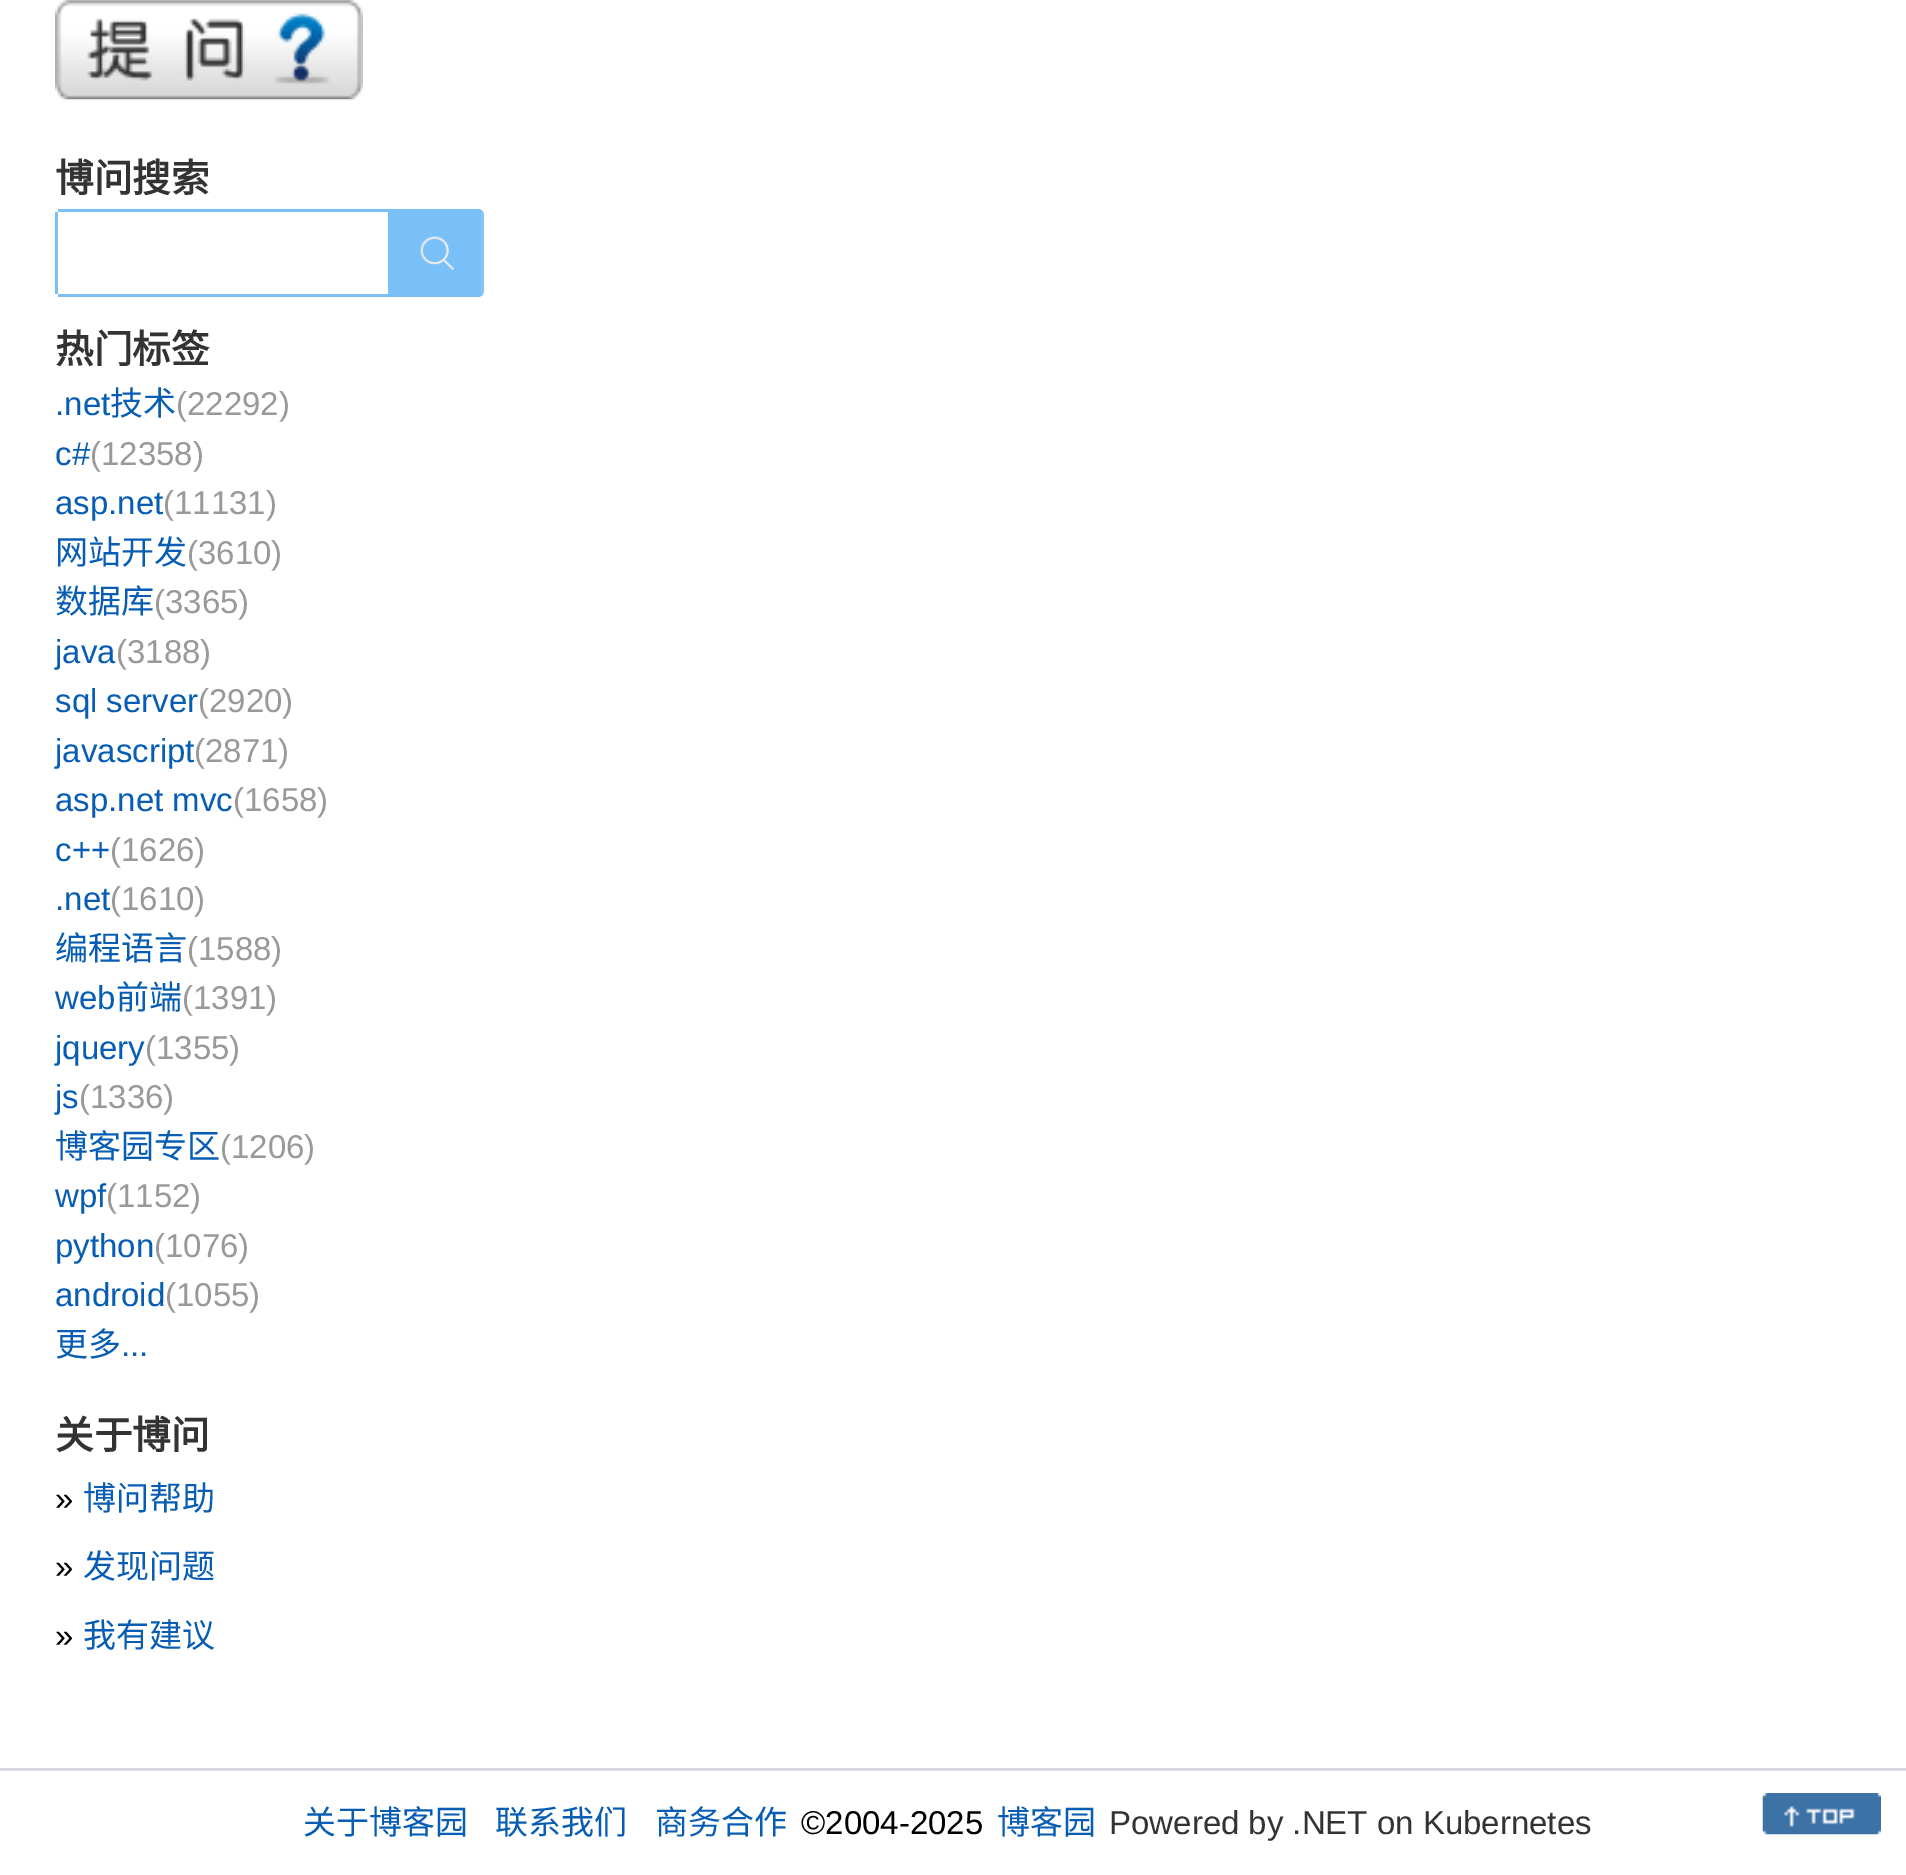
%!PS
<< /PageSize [1906 1875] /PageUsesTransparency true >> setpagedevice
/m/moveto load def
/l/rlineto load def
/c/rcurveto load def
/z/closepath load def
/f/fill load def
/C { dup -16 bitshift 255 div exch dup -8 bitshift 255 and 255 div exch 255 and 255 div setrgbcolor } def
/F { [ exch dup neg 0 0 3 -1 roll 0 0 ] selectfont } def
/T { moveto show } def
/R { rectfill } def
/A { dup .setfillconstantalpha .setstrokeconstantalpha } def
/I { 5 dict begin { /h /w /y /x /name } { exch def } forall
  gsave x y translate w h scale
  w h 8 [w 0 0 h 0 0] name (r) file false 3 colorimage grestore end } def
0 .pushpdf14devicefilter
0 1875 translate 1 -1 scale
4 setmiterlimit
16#FFFFFF C
0 0 1906 1875 R
(1.rgb) 55 0 308 100 I
/NotoSansCJKSC-Bold 38.5 F
16#333333 C
(博问搜索) 55 192 T
16#7AC0F8 C
58 209 330 3 R
58 294 330 3 R
55 212 3 82 R
388 209 m 90 0 l 3.5 0 6 2.5 6 6 c 0 76 l 0 3.5 -2.5 6 -6 6 c -90 0 l z f
(2.rgb) 420 236 34 34 I
0.1 A
16#ECF6FF C
481 212 3 82 R
1 A
16#333333 C
(热门标签) 55 363 T
/LiberationSans-Regular 33 F
16#075DB3 C
(.net) 55 415 T
/NotoSansCJKSC-Regular 33 F
(技术) 110 415 T
/LiberationSans-Regular 33 F
16#999999 C
(\(22292\)) 176 415 T
16#075DB3 C
(c#) 55 465 T
16#999999 C
(\(12358\)) 90 465 T
16#075DB3 C
(asp.net) 55 514 T
16#999999 C
(\(11131\)) 163 514 T
/NotoSansCJKSC-Regular 33 F
16#075DB3 C
(网站开发) 55 564 T
/LiberationSans-Regular 33 F
16#999999 C
(\(3610\)) 187 564 T
/NotoSansCJKSC-Regular 33 F
16#075DB3 C
(数据库) 55 613 T
/LiberationSans-Regular 33 F
16#999999 C
(\(3365\)) 154 613 T
16#075DB3 C
(java) 55 663 T
16#999999 C
(\(3188\)) 116 663 T
16#075DB3 C
(sql server) 55 712 T
16#999999 C
(\(2920\)) 198 712 T
16#075DB3 C
(javascript) 55 762 T
16#999999 C
(\(2871\)) 194 762 T
16#075DB3 C
(asp.net mvc) 55 811 T
16#999999 C
(\(1658\)) 233 811 T
16#075DB3 C
(c++) 55 861 T
16#999999 C
(\(1626\)) 110 861 T
16#075DB3 C
(.net) 55 910 T
16#999999 C
(\(1610\)) 110 910 T
/NotoSansCJKSC-Regular 33 F
16#075DB3 C
(编程语言) 55 960 T
/LiberationSans-Regular 33 F
16#999999 C
(\(1588\)) 187 960 T
16#075DB3 C
(web) 55 1009 T
/NotoSansCJKSC-Regular 33 F
(前端) 116 1009 T
/LiberationSans-Regular 33 F
16#999999 C
(\(1391\)) 182 1009 T
16#075DB3 C
(jquery) 55 1059 T
16#999999 C
(\(1355\)) 145 1059 T
16#075DB3 C
(js) 55 1108 T
16#999999 C
(\(1336\)) 79 1108 T
/NotoSansCJKSC-Regular 33 F
16#075DB3 C
(博客园专区) 55 1158 T
/LiberationSans-Regular 33 F
16#999999 C
(\(1206\)) 220 1158 T
16#075DB3 C
(wpf) 55 1207 T
16#999999 C
(\(1152\)) 106 1207 T
16#075DB3 C
(python) 55 1257 T
16#999999 C
(\(1076\)) 154 1257 T
16#075DB3 C
(android) 55 1306 T
16#999999 C
(\(1055\)) 165 1306 T
/NotoSansCJKSC-Regular 33 F
16#075DB3 C
(更多) 55 1356 T
/LiberationSans-Regular 33 F
(...) 121 1356 T
/NotoSansCJKSC-Bold 38.5 F
16#333333 C
(关于博问) 55 1449 T
/LiberationSans-Regular 33 F
16#000000 C
(») 55 1510 T
/NotoSansCJKSC-Regular 33 F
16#075DB3 C
(博问帮助) 83 1510 T
/LiberationSans-Regular 33 F
16#000000 C
(») 55 1578 T
/NotoSansCJKSC-Regular 33 F
16#075DB3 C
(发现问题) 83 1578 T
/LiberationSans-Regular 33 F
16#000000 C
(») 55 1647 T
/NotoSansCJKSC-Regular 33 F
16#075DB3 C
(我有建议) 83 1647 T
16#D6D9DE C
0 1768 1906 3 R
16#075DB3 C
(关于博客园) 303 1834 T
(联系我们) 495 1834 T
(商务合作) 655 1834 T
/LiberationSans-Regular 33 F
16#000000 C
(©2004-2025) 801 1834 T
/NotoSansCJKSC-Regular 33 F
16#075DB3 C
(博客园) 997 1834 T
/LiberationSans-Regular 33 F
16#333333 C
(Powered by .NET on Kubernetes) 1109 1834 T
(3.rgb) 1762 1793 119 42 I
.poppdf14devicefilter showpage
